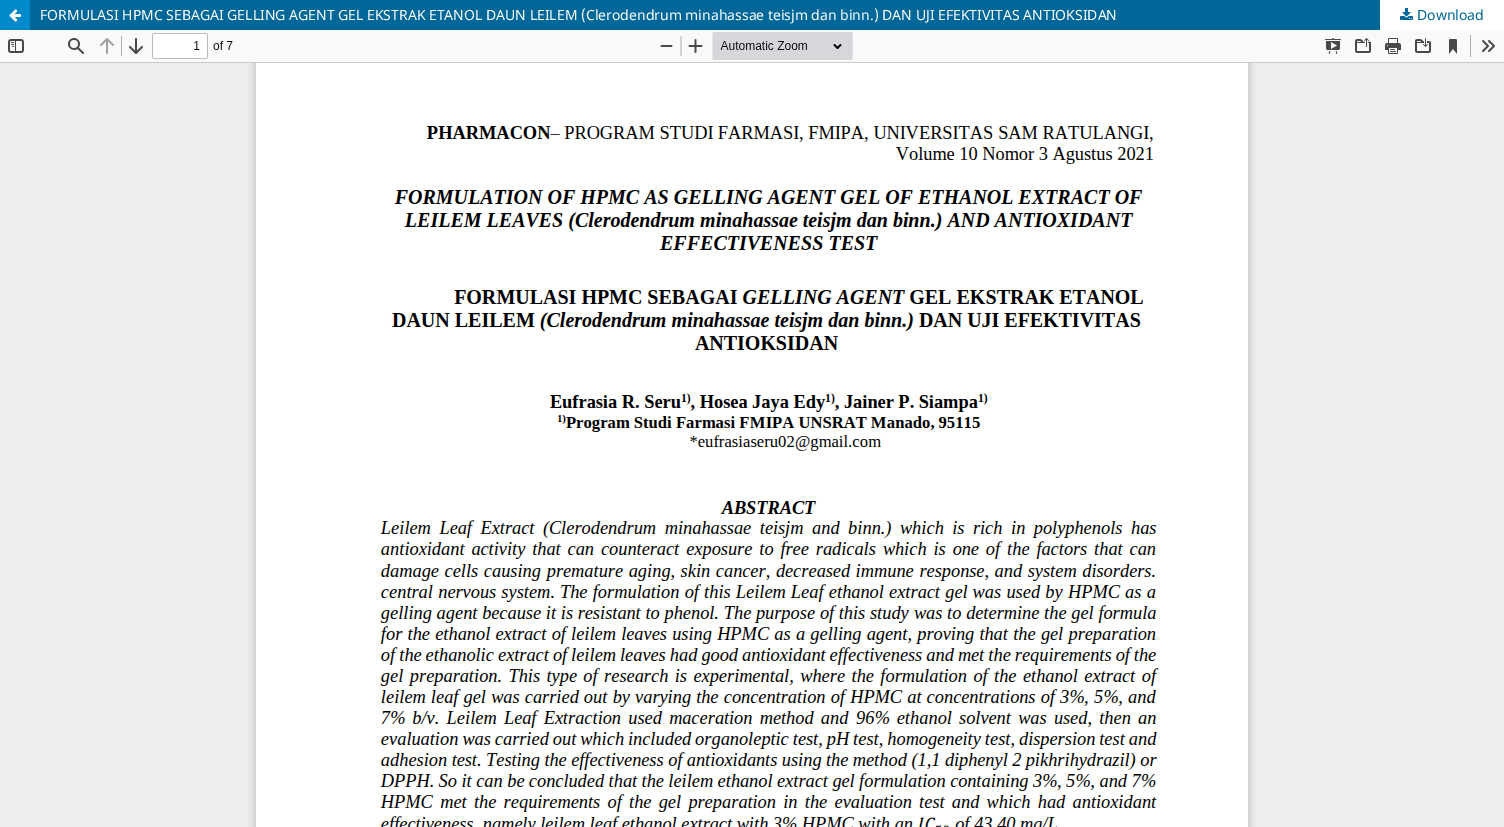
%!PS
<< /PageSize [1504 827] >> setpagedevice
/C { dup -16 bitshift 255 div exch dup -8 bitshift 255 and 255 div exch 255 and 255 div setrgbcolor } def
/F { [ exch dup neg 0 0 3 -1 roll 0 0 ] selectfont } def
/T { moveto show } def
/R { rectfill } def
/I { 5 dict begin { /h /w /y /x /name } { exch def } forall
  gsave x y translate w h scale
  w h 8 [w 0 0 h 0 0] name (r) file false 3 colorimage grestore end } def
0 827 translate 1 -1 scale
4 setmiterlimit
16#FFFFFF C
0 0 1504 827 R
16#006798 C
30 0 1350 30 R
16#008ACB C
0 0 30 30 R
(1.rgb) 9 9 12 13 I
/NotoSans-Regular 14 F
16#FFFFFF C
(FORMULASI HPMC SEBAGAI GELLING AGENT GEL EKSTRAK ETANOL DAUN LEILEM \(Clerodendrum minahassae teisjm dan binn.\) DAN UJI EFEKTIVITAS ANTIOKSIDAN) 40 20 T
(2.rgb) 1400 8 13 12 I
16#006798 C
(Download) 1417 20 T
(3.rgb) 0 30 1504 797 I
showpage
